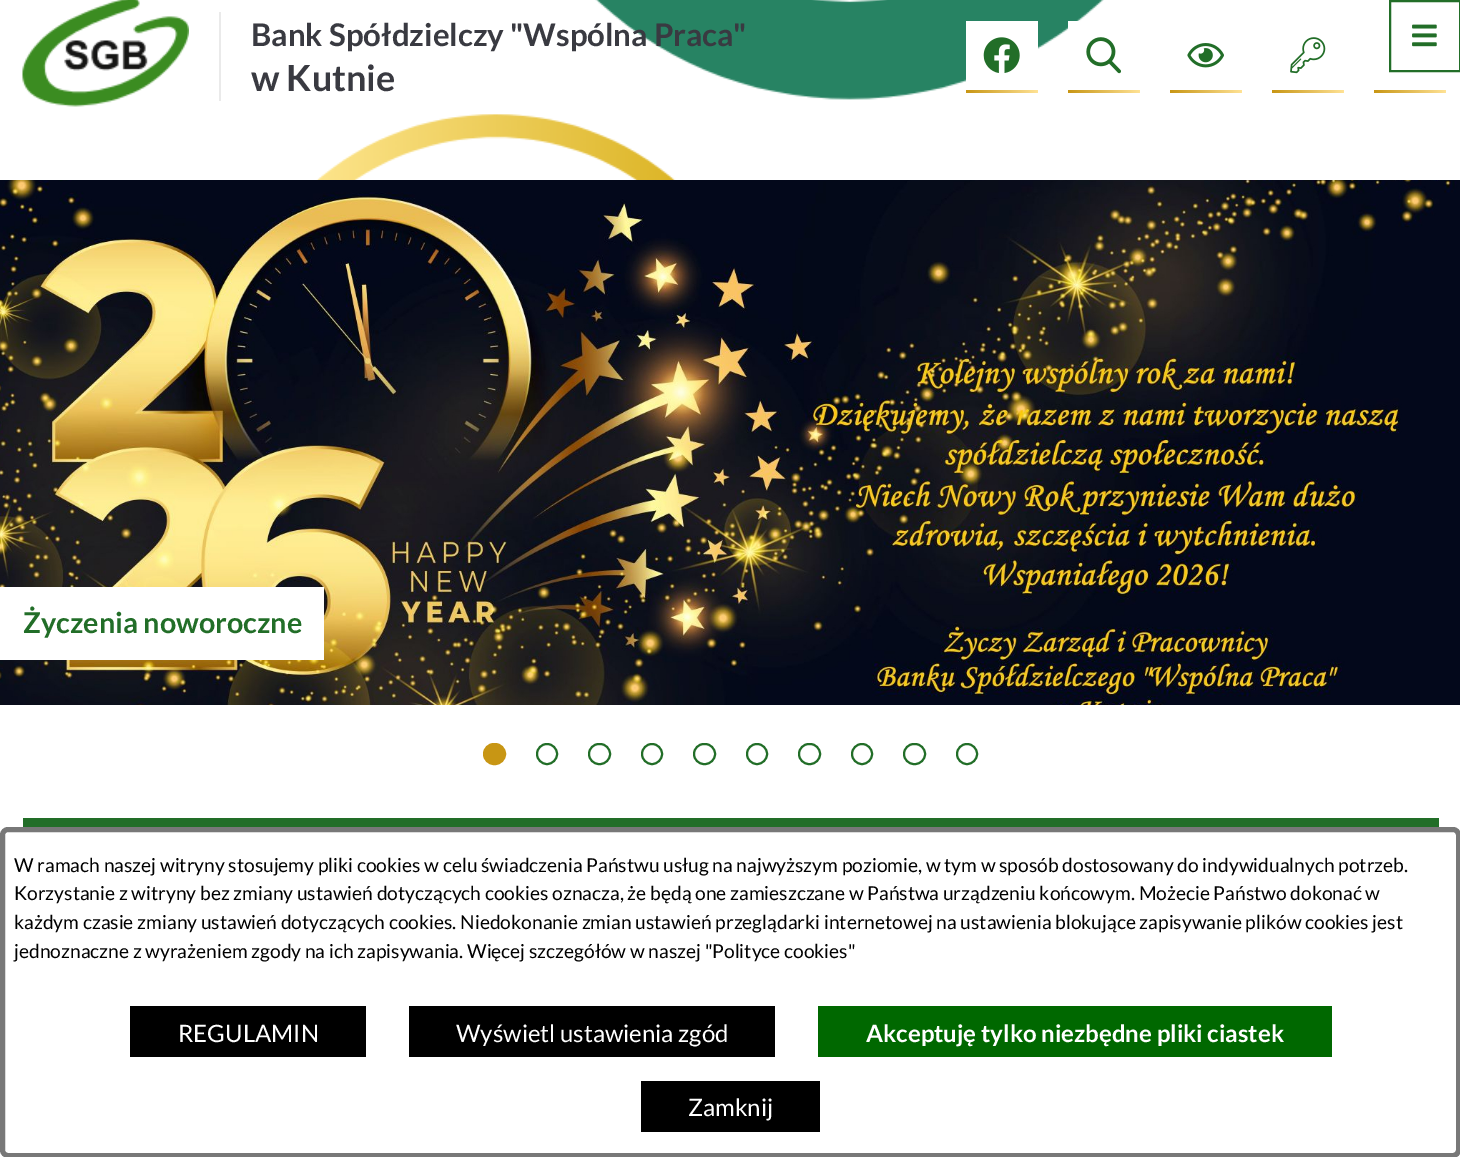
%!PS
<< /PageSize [1460 1157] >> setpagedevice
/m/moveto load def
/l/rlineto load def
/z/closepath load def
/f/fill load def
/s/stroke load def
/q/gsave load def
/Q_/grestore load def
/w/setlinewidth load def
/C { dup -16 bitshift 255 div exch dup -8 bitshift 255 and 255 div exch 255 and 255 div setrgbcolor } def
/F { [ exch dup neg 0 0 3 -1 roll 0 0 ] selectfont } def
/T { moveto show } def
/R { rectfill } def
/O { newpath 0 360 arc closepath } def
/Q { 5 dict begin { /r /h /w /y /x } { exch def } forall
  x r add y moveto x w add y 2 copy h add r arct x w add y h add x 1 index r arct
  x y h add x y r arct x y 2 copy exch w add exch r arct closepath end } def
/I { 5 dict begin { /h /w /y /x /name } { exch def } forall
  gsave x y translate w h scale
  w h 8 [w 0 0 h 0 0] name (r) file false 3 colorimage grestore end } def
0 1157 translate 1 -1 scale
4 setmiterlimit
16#FFFFFF C
0 0 1460 1157 R
(1.rgb) 316 0 788 180 I
(2.rgb) 22 0 167 107 I
16#EAEAEA C
219 12 2 89 R
/Lato-Bold 31.25 F
16#393A41 C
(Bank Spółdzielczy "Wspólna Praca") 251 46 T
/Lato-Bold 36 F
(w Kutnie) 251 91 T
16#FFFFFF C
966 21 72 61 R
(3.rgb) 983 37 37 36 I
q 966 90 m 72 0 l 0 3 l -72 0 l z clip newpath
<< /ShadingType 2 /ColorSpace /DeviceRGB /Coords [966 92 1038 92] /Extend [true true] /Function << /FunctionType 2 /Domain [0 1] /C0 [.784 .588 .078] /C1 [1 .886 .584] /N 1 >> >> shfill Q_
1068 21 12 9 R
(4.rgb) 1086 37 35 37 I
q 1068 90 m 72 0 l 0 3 l -72 0 l z clip newpath
<< /ShadingType 2 /ColorSpace /DeviceRGB /Coords [1068 92 1140 92] /Extend [true true] /Function << /FunctionType 2 /Domain [0 1] /C0 [.784 .588 .078] /C1 [1 .886 .584] /N 1 >> >> shfill Q_
(5.rgb) 1187 43 37 25 I
q 1170 90 m 72 0 l 0 3 l -72 0 l z clip newpath
<< /ShadingType 2 /ColorSpace /DeviceRGB /Coords [1170 92 1242 92] /Extend [true true] /Function << /FunctionType 2 /Domain [0 1] /C0 [.784 .588 .078] /C1 [1 .886 .584] /N 1 >> >> shfill Q_
(6.rgb) 1290 37 36 37 I
q 1272 90 m 72 0 l 0 3 l -72 0 l z clip newpath
<< /ShadingType 2 /ColorSpace /DeviceRGB /Coords [1272 92 1344 92] /Extend [true true] /Function << /FunctionType 2 /Domain [0 1] /C0 [.784 .588 .078] /C1 [1 .886 .584] /N 1 >> >> shfill Q_
q 1374 90 m 72 0 l 0 3 l -72 0 l z clip newpath
<< /ShadingType 2 /ColorSpace /DeviceRGB /Coords [1374 92 1446 92] /Extend [true true] /Function << /FunctionType 2 /Domain [0 1] /C0 [.784 .588 .078] /C1 [1 .886 .584] /N 1 >> >> shfill Q_
16#226E28 C
2 w
1390 1 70 70 rectstroke
(7.rgb) 1412 24 25 23 I
(8.rgb) 0 180 1460 525 I
16#FFFFFF C
0 587 324 73 R
/Lato-Bold 28.75 F
16#226E28 C
(Życzenia noworoczne) 23 633 T
16#C89614 C
484 744 21 20 10 Q q f Q_
s
16#226E28 C
547 754 10 O s
589 744 21 20 10 Q s
652 754 10 O s
694 744 21 20 10 Q s
757 754 10 O s
799 744 21 20 10 Q s
862 754 10 O s
904 744 21 20 10 Q s
967 754 10 O s
23 818 1416 9 R
16#787878 C
5 w
2.5 829.5 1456 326 5.5 Q s
/Lato-Regular 19.2 F
16#000000 C
(W ramach naszej witryny stosujemy pliki cookies w celu świadczenia Państwu usług na najwyższym poziomie, w tym w sposób dostosowany do indywidualnych potrzeb.) 14 872 T
(Korzystanie z witryny bez zmiany ustawień dotyczących cookies oznacza, że będą one zamieszczane w Państwa urządzeniu końcowym. Możecie Państwo dokonać w) 14 900 T
(każdym czasie zmiany ustawień dotyczących cookies. Niedokonanie zmian ustawień przeglądarki internetowej na ustawienia blokujące zapisywanie plików cookies jest) 14 929 T
(jednoznaczne z wyrażeniem zgody na ich zapisywania. Więcej szczegółów w naszej "Polityce cookies") 14 958 T
130 1006 236 51 R
/Lato-Regular 24 F
16#FFFFFF C
(REGULAMIN) 178 1042 T
16#000000 C
409 1006 366 51 R
16#FFFFFF C
(Wyświetl ustawienia zgód) 456 1042 T
16#006800 C
818 1006 514 51 R
/Lato-Bold 24 F
16#FFFFFF C
(Akceptuję tylko niezbędne pliki ciastek) 866 1042 T
16#000000 C
641 1081 179 51 R
/Lato-Regular 24 F
16#FFFFFF C
(Zamknij) 688 1116 T
showpage
